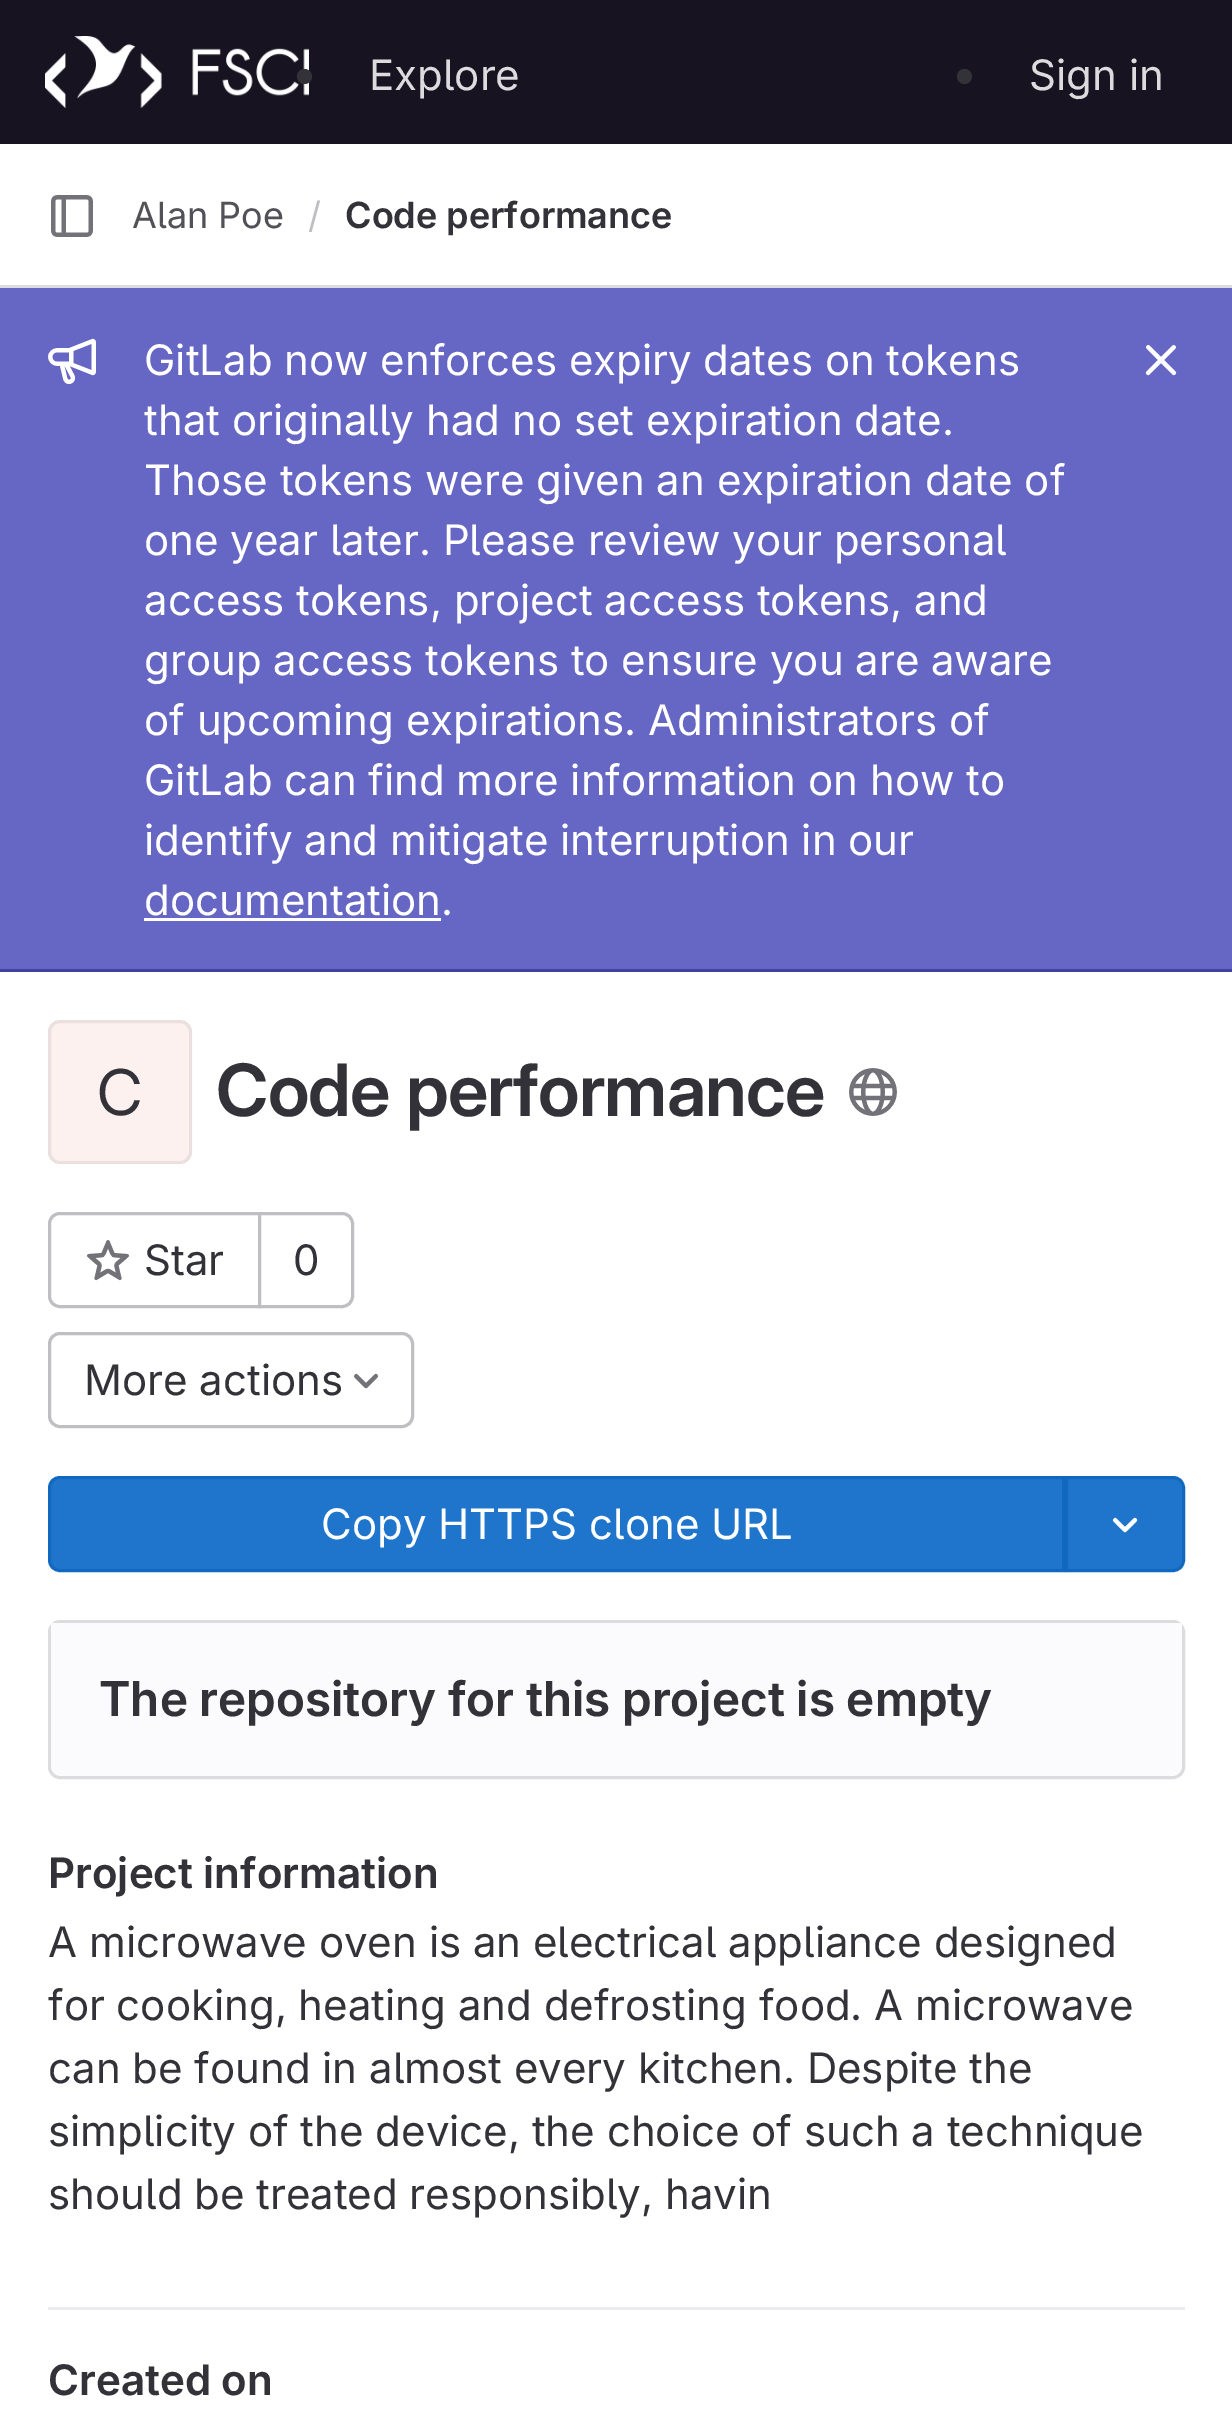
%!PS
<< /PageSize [1232 2411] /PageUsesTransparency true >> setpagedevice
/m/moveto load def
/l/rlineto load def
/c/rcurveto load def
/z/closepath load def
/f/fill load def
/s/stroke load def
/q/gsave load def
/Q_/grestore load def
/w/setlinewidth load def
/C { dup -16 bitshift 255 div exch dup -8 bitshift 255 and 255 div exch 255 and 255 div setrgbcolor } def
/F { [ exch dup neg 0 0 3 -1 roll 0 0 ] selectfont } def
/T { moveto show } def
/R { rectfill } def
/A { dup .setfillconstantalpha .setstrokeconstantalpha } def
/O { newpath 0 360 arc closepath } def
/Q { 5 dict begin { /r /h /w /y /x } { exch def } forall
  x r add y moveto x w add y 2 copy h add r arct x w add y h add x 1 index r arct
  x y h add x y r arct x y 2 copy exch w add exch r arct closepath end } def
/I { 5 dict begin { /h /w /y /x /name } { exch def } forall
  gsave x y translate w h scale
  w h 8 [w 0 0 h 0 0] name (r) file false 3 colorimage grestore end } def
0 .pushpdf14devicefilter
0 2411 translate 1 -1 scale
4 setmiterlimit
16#FFFFFF C
0 0 1232 2411 R
16#171321 C
0 0 1232 144 R
(1.rgb) 45 36 264 72 I
16#333238 C
304.5 76.5 7.5 O f
/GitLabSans-Regular 42 F
16#DCDCDE C
(Explore) 369 90 T
16#333238 C
964.5 76.5 7.5 O f
16#DCDCDE C
(Sign in) 1029 90 T
0 285 1232 3 R
(2.rgb) 51 195 42 42 I
/GitLabSans-Regular 36 F
16#535158 C
(Alan Poe) 132 228 T
16#BFBFC3 C
(/) 308 228 T
/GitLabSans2-SemiBold 36 F
16#333238 C
(Code performance) 345 228 T
16#6666C4 C
0 288 1232 681 R
16#41419F C
0 969 1232 3 R
(3.rgb) 48 338 48 46 I
/GitLabSans-Regular 42 F
16#FFFFFF C
(GitLab now enforces expiry dates on tokens) 144 375 T
(that originally had no set expiration date.) 144 435 T
(Those tokens were given an expiration date of) 144 495 T
(one year later. Please review your personal) 144 555 T
(access tokens, project access tokens, and) 144 615 T
(group access tokens to ensure you are aware) 144 675 T
(of upcoming expirations. Administrators of) 144 735 T
(GitLab can find more information on how to) 144 795 T
(identify and mitigate interruption in our) 144 855 T
(documentation.) 144 915 T
144 918 297 3 R
(4.rgb) 1145 345 32 31 I
16#FCF1EF C
48 1020 144 144 12 Q f
0.08 A
16#1F1E24 C
3 w
49.5 1021.5 141 141 10.5 Q s
/GitLabSans2-Regular 63 F
1 A
16#333238 C
(C) 97 1115 T
/GitLabSans-SemiBold 72 F
216 1116 m -.75 0 (Code performance) ashow
(5.rgb) 849 1068 48 48 I
16#BFBFC3 C
60 1213.5 m 199.5 0 l 0 93 l -199.5 0 l -6 0 -10.5 -4.5 -10.5 -10.5 c 0 -72 l 0 -6 4.5 -10.5 10.5 -10.5 c z s
(6.rgb) 87 1240 42 41 I
/GitLabSans-Regular 42 F
16#333238 C
(Star) 144 1275 T
16#FFFFFF C
259.5 1213.5 m 82.5 0 l 6 0 10.5 4.5 10.5 10.5 c 0 72 l 0 6 -4.5 10.5 -10.5 10.5 c -82.5 0 l z q f Q_
16#BFBFC3 C
s
16#333238 C
(0) 293 1275 T
16#BFBFC3 C
49.5 1333.5 363 93 10.5 Q s
16#333238 C
(More actions) 84 1395 T
(7.rgb) 354 1373 25 16 I
16#1F75CB C
60 1477.5 m 1003.5 0 l 0 93 l -1003.5 0 l -6 0 -10.5 -4.5 -10.5 -10.5 c 0 -72 l 0 -6 4.5 -10.5 10.5 -10.5 c z q f Q_
16#1068BF C
s
16#FFFFFF C
(Copy HTTPS clone URL) 321 1539 T
16#1F75CB C
1066.5 1477.5 m 106.5 0 l 6 0 10.5 4.5 10.5 10.5 c 0 72 l 0 6 -4.5 10.5 -10.5 10.5 c -106.5 0 l z q f Q_
16#1068BF C
s
(8.rgb) 1112 1517 26 16 I
16#DCDCDE C
49.5 1621.5 1134 156 10.5 Q s
16#FBFAFD C
51 1623 m 1131 0 l 0 141 l 0 6.5 -5.5 12 -12 12 c -1107 0 l -6.5 0 -12 -5.5 -12 -12 c z f
/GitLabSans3-SemiBold 48 F
16#333238 C
(The repository for this project is empty) 99 1716 T
16#ECECEF C
48 2307 1137 3 R
/GitLabSans2-SemiBold 42 F
16#333238 C
(Project information) 48 1888 T
/GitLabSans-Regular 42 F
(A microwave oven is an electrical appliance designed) 48 1957 T
(for cooking, heating and defrosting food. A microwave) 48 2020 T
(can be found in almost every kitchen. Despite the) 48 2083 T
(simplicity of the device, the choice of such a technique) 48 2146 T
(should be treated responsibly, havin) 48 2209 T
/GitLabSans2-SemiBold 42 F
(Created on) 48 2395 T
.poppdf14devicefilter showpage
